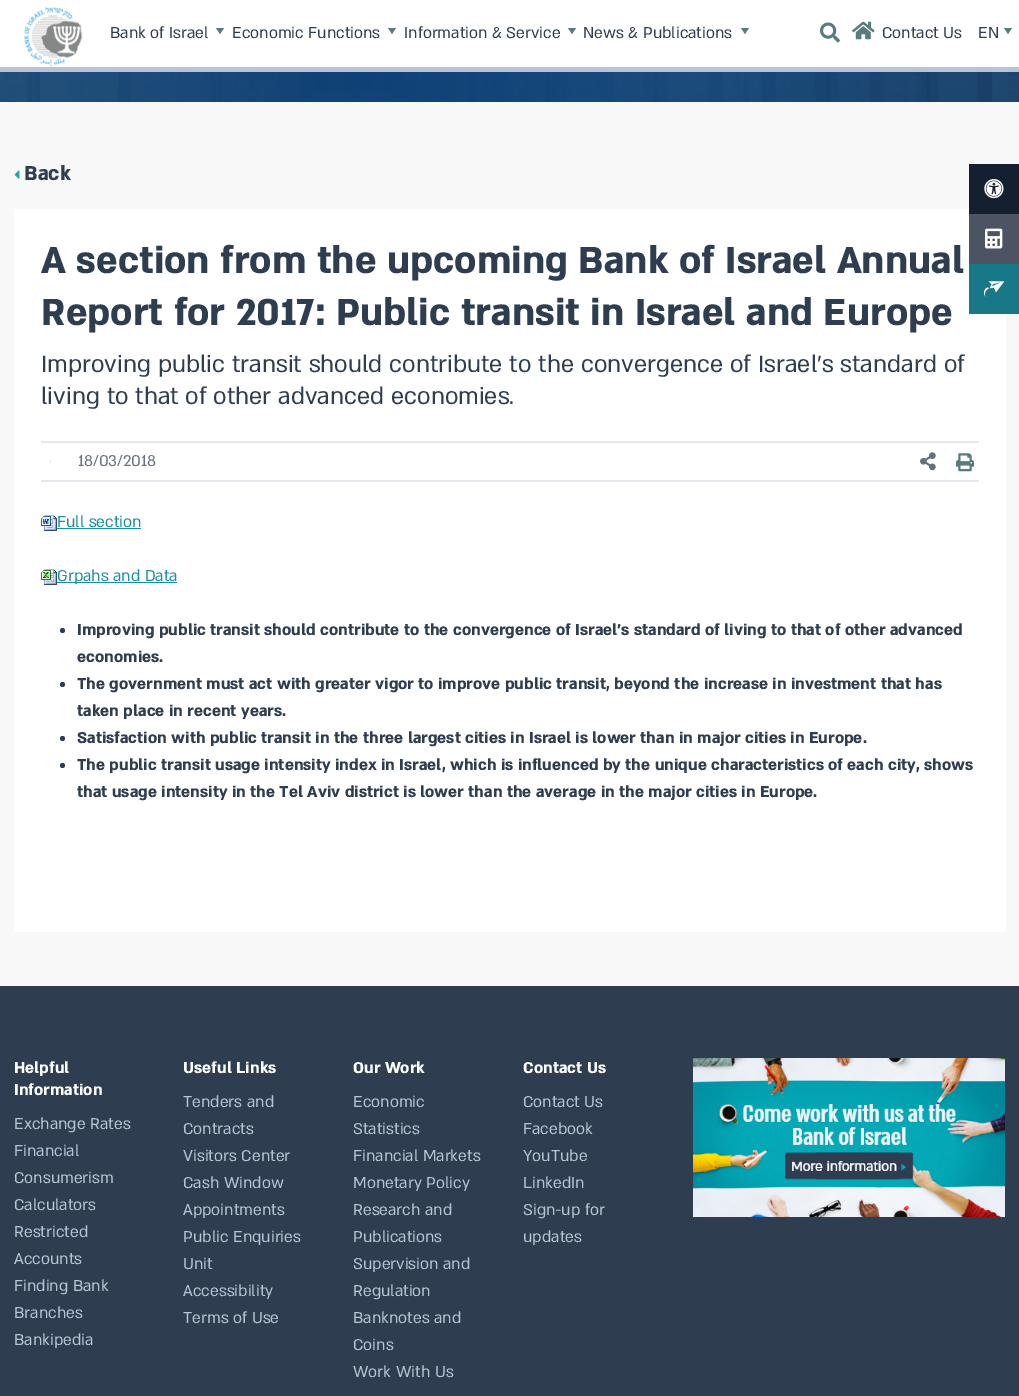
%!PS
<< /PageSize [1019 1396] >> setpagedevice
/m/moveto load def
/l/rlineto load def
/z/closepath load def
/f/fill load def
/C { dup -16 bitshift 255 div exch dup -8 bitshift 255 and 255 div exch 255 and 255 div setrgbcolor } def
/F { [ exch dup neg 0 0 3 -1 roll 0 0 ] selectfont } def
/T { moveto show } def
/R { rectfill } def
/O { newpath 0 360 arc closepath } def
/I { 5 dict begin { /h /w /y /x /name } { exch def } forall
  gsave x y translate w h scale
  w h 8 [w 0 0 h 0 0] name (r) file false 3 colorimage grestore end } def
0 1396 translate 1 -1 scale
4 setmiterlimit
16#F8F8F8 C
0 0 1019 1396 R
16#FFFFFF C
0 0 1019 67 R
16#B8C4D5 C
0 67 1019 5 R
(1.rgb) 24 6 59 61 I
/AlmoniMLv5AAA-Regular 18 F
16#2E3D50 C
(Bank of Israel) 110 38 T
16#587B7E C
216 28 m 8 0 l -4 6 l z f
16#2E3D50 C
(Economic Functions) 232 38 T
16#587B7E C
388 28 m 8 0 l -4 6 l z f
16#2E3D50 C
(Information & Service) 404 38 T
16#587B7E C
568 28 m 8 0 l -4 6 l z f
16#2E3D50 C
(News & Publications) 583 38 T
16#587B7E C
741 28 m 8 0 l -4 6 l z f
(2.rgb) 820 22 20 21 I
(3.rgb) 852 21 23 19 I
16#2E3D50 C
(Contact Us) 882 38 T
(EN) 978 38 T
16#587B7E C
1004 28 m 8 0 l -4 6 l z f
(4.rgb) 0 72 1019 30 I
(5.rgb) 14 170 6 9 I
/AlmoniMLv5AAA-Bold 23 F
16#2E3D50 C
(Back) 24 180 T
16#FFFFFF C
14 209 992 723 R
/AlmoniMLv5AAA-Bold 43.2 F
16#2E3D50 C
(A section from the upcoming Bank of Israel Annual) 41 273 T
(Report for 2017: Public transit in Israel and Europe) 41 325 T
/AlmoniMLv5AAA-Regular 27 F
(Improving public transit should contribute to the convergence of Israel’s standard of) 41 372 T
(living to that of other advanced economies.) 41 404 T
16#E3E7EE C
41 441 938 2 R
41 480 938 2 R
50 460 1 3 R
/AlmoniMLv5AAA-Regular 18 F
16#676F7E C
(18/03/2018) 78 466 T
(6.rgb) 920 452 16 19 I
(7.rgb) 956 453 18 19 I
(8.rgb) 41 515 16 16 I
16#1A8FA4 C
(Full section) 57 527 T
57 528 84 1 R
(9.rgb) 41 569 16 16 I
57 582 120 1 R
(Grpahs and Data) 57 581 T
16#2E3D50 C
62.5 630.5 2.5 O f
/AlmoniMLv5AAA-Bold 18 F
(Improving public transit should contribute to the convergence of Israel’s standard of living to that of other advanced) 77 635 T
(economies.) 77 662 T
62.5 684.5 2.5 O f
(The government must act with greater vigor to improve public transit, beyond the increase in investment that has) 77 689 T
(taken place in recent years.) 77 716 T
62.5 738.5 2.5 O f
(Satisfaction with public transit in the three largest cities in Israel is lower than in major cities in Europe.) 77 743 T
62.5 765.5 2.5 O f
(The public transit usage intensity index in Israel, which is influenced by the unique characteristics of each city, shows) 77 770 T
(that usage intensity in the Tel Aviv district is lower than the average in the major cities in Europe.) 77 797 T
16#142030 C
969 164 50 50 R
(10.rgb) 984 179 20 20 I
16#4C5464 C
969 214 50 50 R
(11.rgb) 985 228 18 21 I
16#197888 C
969 264 50 50 R
(12.rgb) 983 281 22 16 I
16#2E3D50 C
0 986 1019 410 R
16#FFFFFF C
(Helpful) 14 1073 T
(Information) 14 1095 T
/AlmoniMLv5AAA-Regular 18 F
16#B8C4D5 C
(Exchange Rates) 14 1129 T
(Financial) 14 1156 T
(Consumerism) 14 1183 T
(Calculators) 14 1210 T
(Restricted) 14 1237 T
(Accounts) 14 1264 T
(Finding Bank) 14 1291 T
(Branches) 14 1318 T
(Bankipedia) 14 1345 T
/AlmoniMLv5AAA-Bold 18 F
16#FFFFFF C
(Useful Links) 183 1073 T
/AlmoniMLv5AAA-Regular 18 F
16#B8C4D5 C
(Tenders and) 183 1107 T
(Contracts) 183 1134 T
(Visitors Center) 183 1161 T
(Cash Window) 183 1188 T
(Appointments) 183 1215 T
(Public Enquiries) 183 1242 T
(Unit) 183 1269 T
(Accessibility) 183 1296 T
(Terms of Use) 183 1323 T
/AlmoniMLv5AAA-Bold 18 F
16#FFFFFF C
(Our Work) 353 1073 T
/AlmoniMLv5AAA-Regular 18 F
16#B8C4D5 C
(Economic) 353 1107 T
(Statistics) 353 1134 T
(Financial Markets) 353 1161 T
(Monetary Policy) 353 1188 T
(Research and) 353 1215 T
(Publications) 353 1242 T
(Supervision and) 353 1269 T
(Regulation) 353 1296 T
(Banknotes and) 353 1323 T
(Coins) 353 1350 T
(Work With Us) 353 1377 T
/AlmoniMLv5AAA-Bold 18 F
16#FFFFFF C
(Contact Us) 523 1073 T
/AlmoniMLv5AAA-Regular 18 F
16#B8C4D5 C
(Contact Us) 523 1107 T
(Facebook) 523 1134 T
(YouTube) 523 1161 T
(LinkedIn) 523 1188 T
(Sign-up for) 523 1215 T
(updates) 523 1242 T
(13.rgb) 693 1058 312 159 I
showpage
